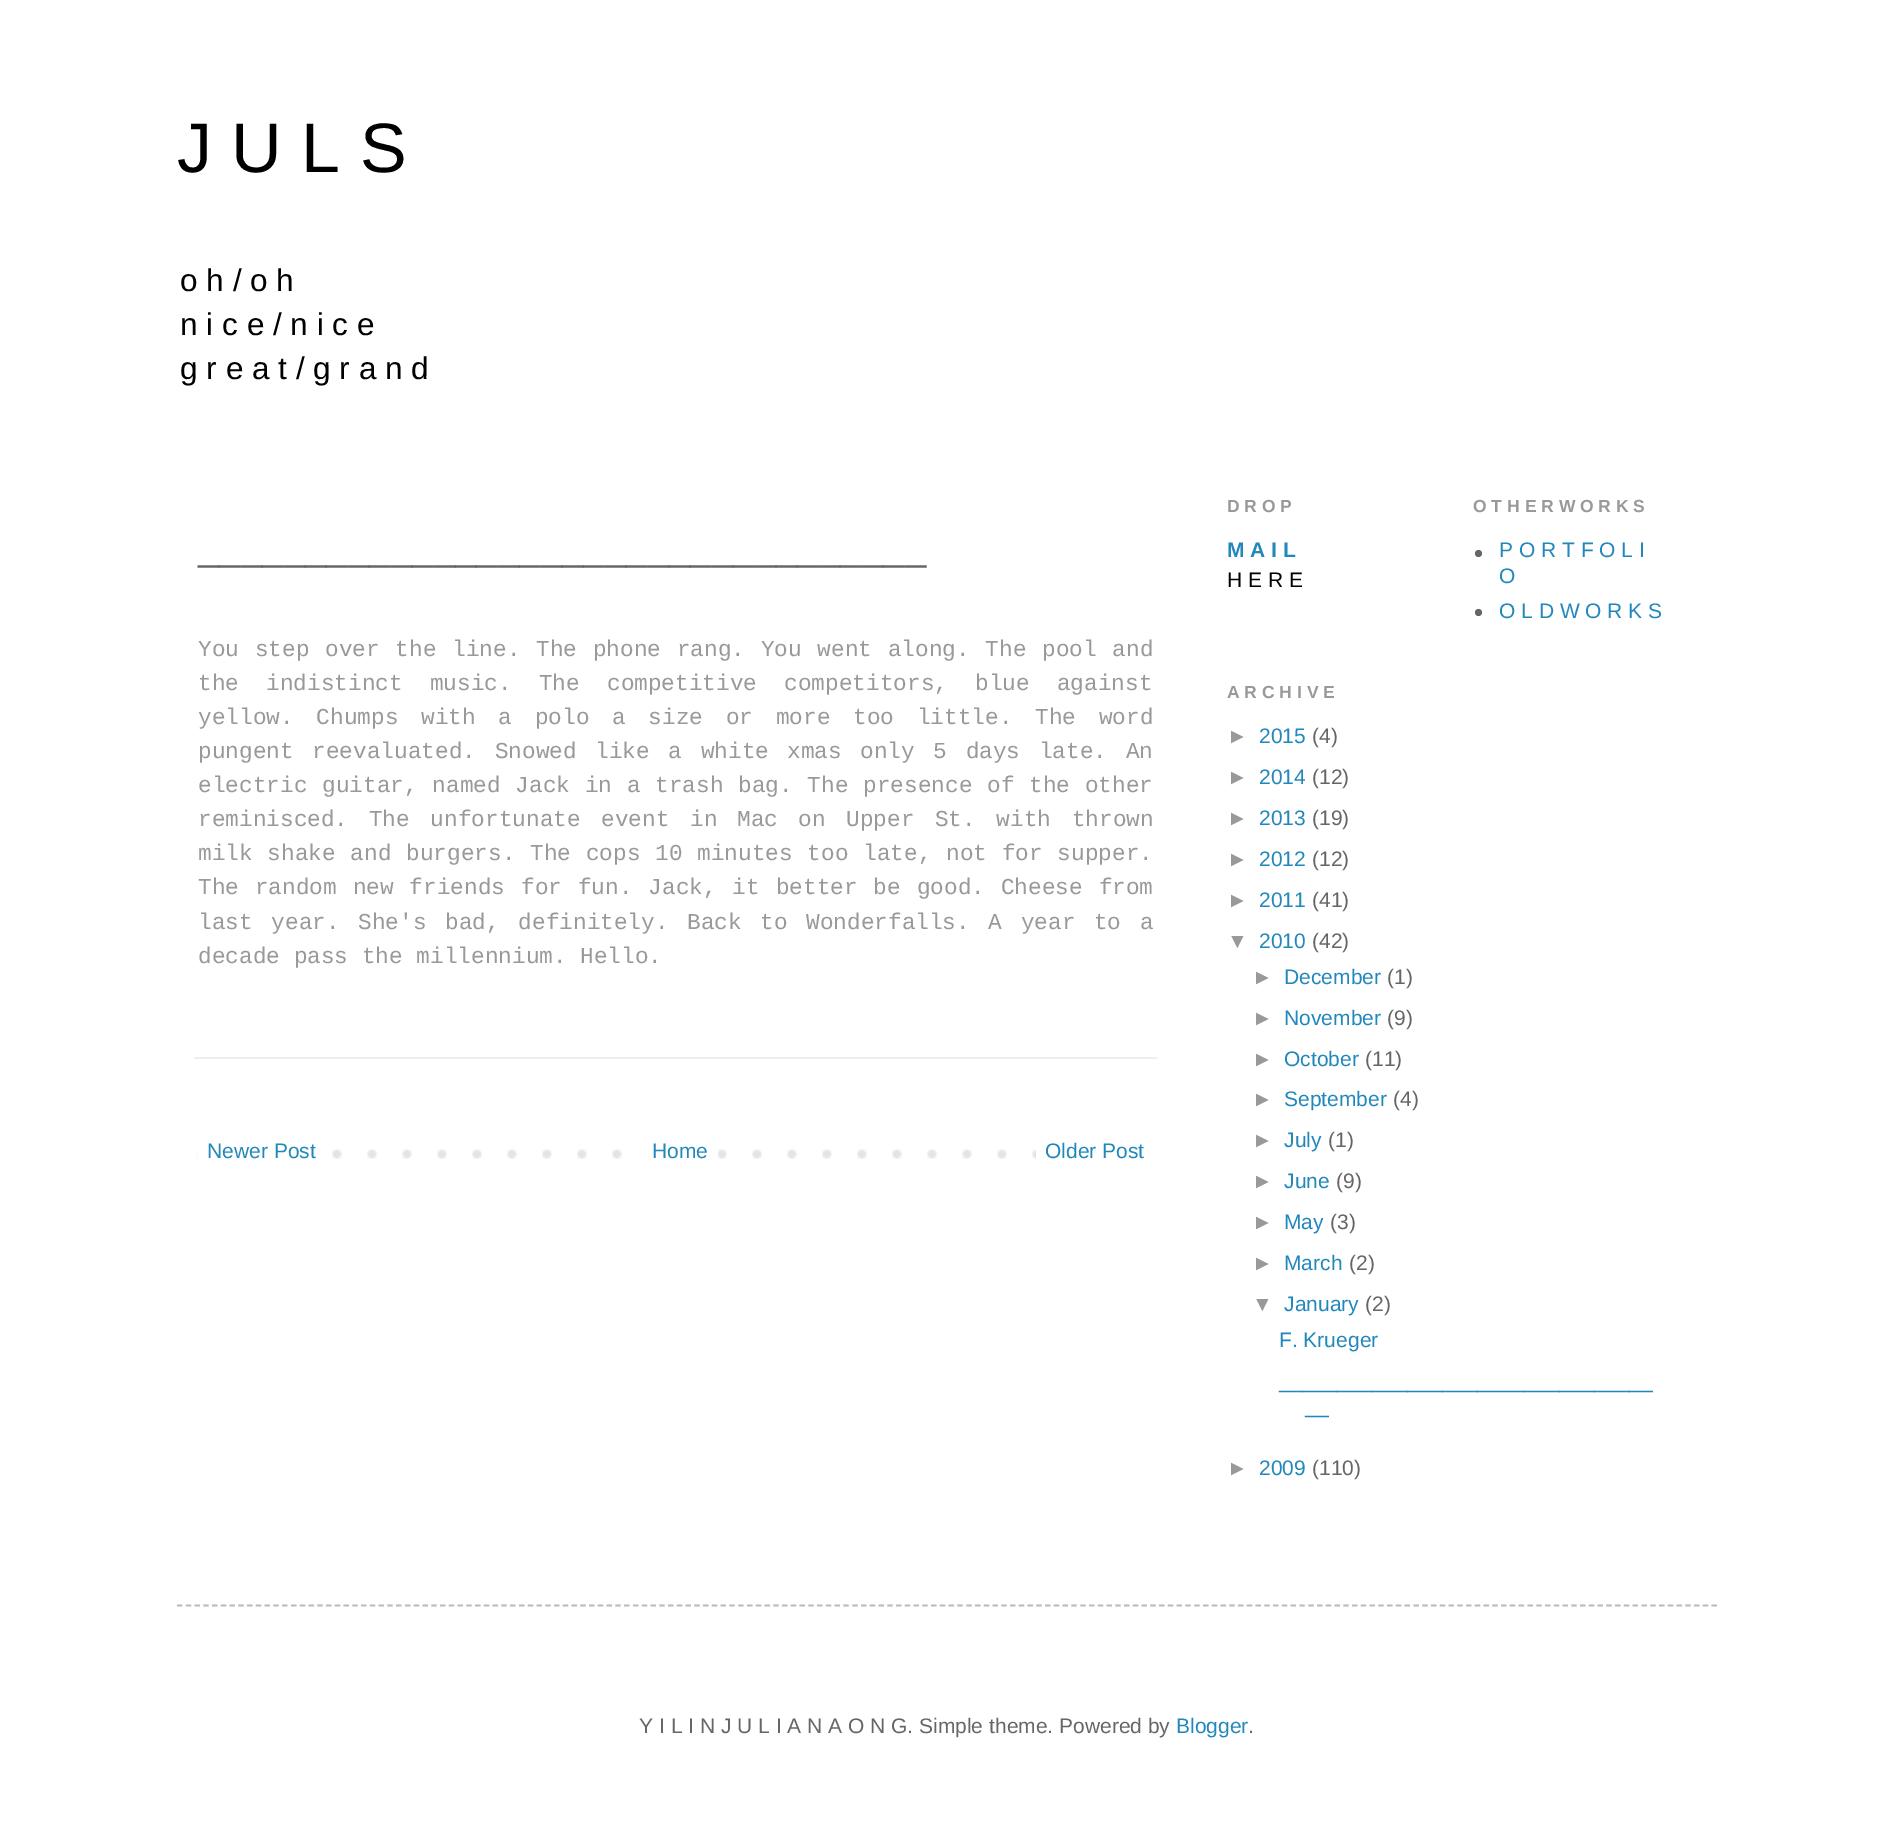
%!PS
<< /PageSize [1892 1821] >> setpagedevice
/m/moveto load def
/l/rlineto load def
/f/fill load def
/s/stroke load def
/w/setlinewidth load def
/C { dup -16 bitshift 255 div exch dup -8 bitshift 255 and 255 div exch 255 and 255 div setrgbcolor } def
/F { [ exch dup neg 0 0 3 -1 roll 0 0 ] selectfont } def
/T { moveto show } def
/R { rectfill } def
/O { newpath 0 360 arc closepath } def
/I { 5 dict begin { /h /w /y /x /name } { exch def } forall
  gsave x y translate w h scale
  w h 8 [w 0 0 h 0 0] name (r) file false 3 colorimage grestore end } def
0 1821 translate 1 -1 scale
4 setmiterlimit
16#FFFFFF C
0 0 1892 1821 R
/LiberationSans-Regular 70 F
16#000000 C
(J U L S) 177 172 T
/LiberationSans-Regular 31.5 F
(o h / o h) 180 291 T
(n i c e / n i c e) 180 335 T
(g r e a t / g r a n d) 180 379 T
/LiberationSans-Regular 38.5 F
16#666666 C
(__________________________________) 198 560 T
/LiberationMono-Regular 22.75 F
16#999999 C
198 656 m 2.1 0 32 (You step over the line. The phone rang. You went along. The pool and) widthshow
198 690 m 13.5 0 32 (the indistinct music. The competitive competitors, blue against) widthshow
198 724 m 9.1 0 32 (yellow. Chumps with a polo a size or more too little. The word) widthshow
198 758 m 5 0 32 (pungent reevaluated. Snowed like a white) widthshow
(xmas) 787 758 T
860 758 m 5 0 32 (only 5 days late. An) widthshow
198 792 m 1.1 0 32 (electric guitar, named Jack in a trash bag. The presence of the other) widthshow
198 826 m 7 0 32 (reminisced. The unfortunate event in) widthshow
(Mac) 737 826 T
798 826 m 7 0 32 (on Upper St. with thrown) widthshow
198 860 m 1.1 0 32 (milk shake and burgers. The cops 10 minutes too late, not for supper.) widthshow
198 894 m 2.25 0 32 (The random new friends for fun. Jack, it better be good. Cheese from) widthshow
198 929 m 5 0 32 (last year. She's bad, definitely. Back to) widthshow
(Wonderfalls) 806 929 T
956 929 m 5 0 32 (. A year to a) widthshow
(decade pass the millennium. Hello.) 198 963 T
16#EEEEEE C
194 1057 963 2 R
(1.rgb) 197 1149 839 10 I
16#FFFFFF C
198 1149 110 10 R
/LiberationSans-Regular 21 F
16#2288BB C
(Newer Post) 207 1158 T
16#FFFFFF C
647 1149 71 10 R
16#2288BB C
(Home) 652 1158 T
(Older Post) 1045 1158 T
/LiberationSans-Bold 17.5 F
16#999999 C
(D R O P) 1227 512 T
/LiberationSans-Bold 21 F
16#2288BB C
(M A I L) 1227 557 T
/LiberationSans-Regular 21 F
16#000000 C
(H E R E) 1227 587 T
/LiberationSans-Bold 17.5 F
16#999999 C
(O T H E R W O R K S) 1473 512 T
16#666666 C
1478.5 553.5 3.5 O f
/LiberationSans-Regular 21 F
16#2288BB C
(P O R T F O L I) 1499 557 T
(O) 1499 583 T
16#666666 C
1478.5 612.5 3.5 O f
16#2288BB C
(O L D W O R K S) 1499 618 T
/LiberationSans-Bold 17.5 F
16#999999 C
(A R C H I V E) 1227 698 T
/LiberationSans-Regular 21 F
(►) 1227 743 T
16#2288BB C
(2015) 1259 743 T
16#666666 C
(\(4\)) 1312 743 T
16#999999 C
(►) 1227 784 T
16#2288BB C
(2014) 1259 784 T
16#666666 C
(\(12\)) 1312 784 T
16#999999 C
(►) 1227 825 T
16#2288BB C
(2013) 1259 825 T
16#666666 C
(\(19\)) 1312 825 T
16#999999 C
(►) 1227 866 T
16#2288BB C
(2012) 1259 866 T
16#666666 C
(\(12\)) 1312 866 T
16#999999 C
(►) 1227 907 T
16#2288BB C
(2011) 1259 907 T
16#666666 C
(\(41\)) 1312 907 T
16#999999 C
(▼) 1227 948 T
16#2288BB C
(2010) 1259 948 T
16#666666 C
(\(42\)) 1312 948 T
16#999999 C
(►) 1252 984 T
16#2288BB C
(December) 1284 984 T
16#666666 C
(\(1\)) 1387 984 T
16#999999 C
(►) 1252 1025 T
16#2288BB C
(November) 1284 1025 T
16#666666 C
(\(9\)) 1387 1025 T
16#999999 C
(►) 1252 1066 T
16#2288BB C
(October) 1284 1066 T
16#666666 C
(\(11\)) 1365 1066 T
16#999999 C
(►) 1252 1106 T
16#2288BB C
(September) 1284 1106 T
16#666666 C
(\(4\)) 1393 1106 T
16#999999 C
(►) 1252 1147 T
16#2288BB C
(July) 1284 1147 T
16#666666 C
(\(1\)) 1328 1147 T
16#999999 C
(►) 1252 1188 T
16#2288BB C
(June) 1284 1188 T
16#666666 C
(\(9\)) 1336 1188 T
16#999999 C
(►) 1252 1229 T
16#2288BB C
(May) 1284 1229 T
16#666666 C
(\(3\)) 1330 1229 T
16#999999 C
(►) 1252 1270 T
16#2288BB C
(March) 1284 1270 T
16#666666 C
(\(2\)) 1349 1270 T
16#999999 C
(▼) 1252 1311 T
16#2288BB C
(January) 1284 1311 T
16#666666 C
(\(2\)) 1365 1311 T
16#2288BB C
(F. Krueger) 1279 1347 T
(________________________________) 1279 1388 T
(__) 1305 1413 T
16#999999 C
(►) 1227 1475 T
16#2288BB C
(2009) 1259 1475 T
16#666666 C
(\(110\)) 1312 1475 T
16#BBBBBB C
1.8 w
[5.25 3.52] 0 setdash
177 1605.5 m 1540 0 l s
16#666666 C
(Y I L I N J U L I A N A O N G. Simple theme. Powered by) 639 1733 T
16#2288BB C
(Blogger) 1176 1733 T
16#666666 C
(.) 1248 1733 T
showpage
